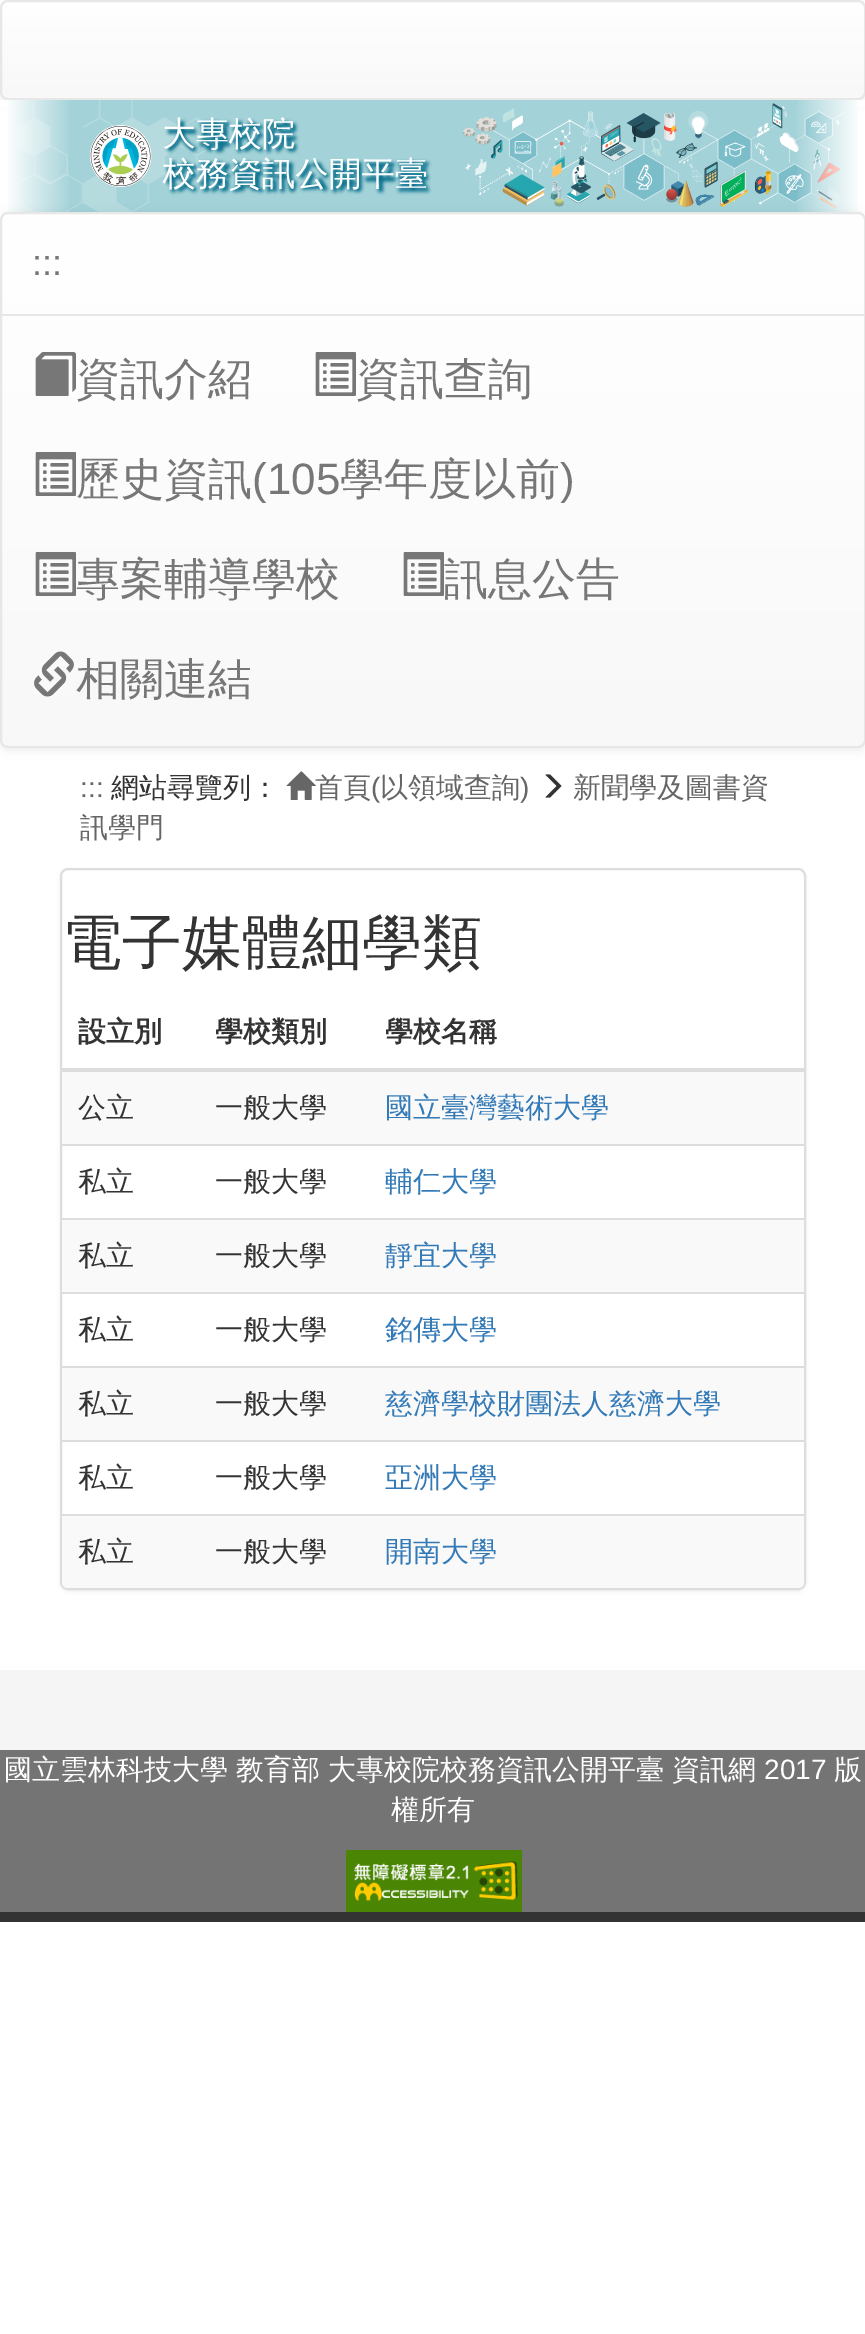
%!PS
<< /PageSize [865 2334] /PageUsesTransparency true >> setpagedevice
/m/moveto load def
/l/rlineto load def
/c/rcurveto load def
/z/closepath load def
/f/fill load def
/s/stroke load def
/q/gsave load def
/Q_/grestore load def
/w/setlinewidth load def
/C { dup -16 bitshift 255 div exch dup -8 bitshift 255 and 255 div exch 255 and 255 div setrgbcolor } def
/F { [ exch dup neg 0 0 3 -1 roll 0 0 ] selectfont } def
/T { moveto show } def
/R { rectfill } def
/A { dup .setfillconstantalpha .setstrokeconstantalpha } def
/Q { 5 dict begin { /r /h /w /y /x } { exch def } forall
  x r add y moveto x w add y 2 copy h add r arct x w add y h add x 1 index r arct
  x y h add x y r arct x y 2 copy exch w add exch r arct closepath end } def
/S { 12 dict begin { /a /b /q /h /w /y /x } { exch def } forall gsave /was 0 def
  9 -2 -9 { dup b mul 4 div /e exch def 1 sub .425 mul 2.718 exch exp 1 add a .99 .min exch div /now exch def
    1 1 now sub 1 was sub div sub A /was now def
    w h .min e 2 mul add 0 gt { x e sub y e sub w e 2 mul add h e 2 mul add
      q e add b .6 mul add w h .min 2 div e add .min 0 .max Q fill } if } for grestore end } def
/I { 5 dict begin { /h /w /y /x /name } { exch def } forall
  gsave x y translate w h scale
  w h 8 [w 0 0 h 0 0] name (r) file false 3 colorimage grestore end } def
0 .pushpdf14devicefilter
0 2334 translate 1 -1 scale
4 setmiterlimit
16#FFFFFF C
0 0 865 2334 R
16#000000 C
0 2 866 100 8 5 .07 S
q
0 0 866 100 8 Q clip newpath
q 0 2 m 865 0 l 0 96 l -865 0 l z clip newpath
<< /ShadingType 2 /ColorSpace /DeviceRGB /Coords [433 2 433 98] /Extend [true true] /Function << /FunctionType 2 /Domain [0 1] /C0 [1 1 1] /C1 [.973 .973 .973] /N 1 >> >> shfill Q_
Q_
16#E7E7E7 C
2 w
1 1 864 98 7 Q s
16#FFFFFF C
0 100 865 7 R
(1.rgb) 8 100 850 112 I
16#000000 C
0 214 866 536 8 5 .07 S
q
0 212 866 536 8 Q clip newpath
q 0 214 m 865 0 l 0 532 l -865 0 l z clip newpath
<< /ShadingType 2 /ColorSpace /DeviceRGB /Coords [433 214 433 746] /Extend [true true] /Function << /FunctionType 2 /Domain [0 1] /C0 [1 1 1] /C1 [.973 .973 .973] /N 1 >> >> shfill Q_
Q_
16#E7E7E7 C
1 213 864 534 7 Q s
/LiberationSans-Regular 36 F
16#777777 C
(:::) 32 275 T
16#E7E7E7 C
2 314 862 2 R
(2.rgb) 35 352 41 44 I
/WenQuanYiZenHei-Medium 44 F
16#777777 C
(資訊介紹) 76 394 T
(3.rgb) 315 352 41 44 I
(資訊查詢) 356 394 T
(4.rgb) 35 452 41 44 I
(歷史資訊) 76 494 T
/LiberationSans-Regular 44 F
(\(105) 252 494 T
/WenQuanYiZenHei-Medium 44 F
(學年度以前) 340 494 T
/LiberationSans-Regular 44 F
(\)) 560 494 T
(5.rgb) 35 552 41 44 I
/WenQuanYiZenHei-Medium 44 F
(專案輔導學校) 76 594 T
(5.rgb) 403 552 41 44 I
(訊息公告) 444 594 T
(6.rgb) 34 651 40 46 I
(相關連結) 76 694 T
/LiberationSans-Regular 28 F
16#666666 C
(:::) 80 797 T
/WenQuanYiZenHei-Medium 28 F
16#333333 C
(網站尋覽列：) 111 797 T
16#666666 C
(首頁) 315 797 T
(7.rgb) 286 771 30 29 I
/LiberationSans-Regular 28 F
(\() 371 797 T
/WenQuanYiZenHei-Medium 28 F
(以領域查詢) 380 797 T
/LiberationSans-Regular 28 F
(\)) 520 797 T
(8.rgb) 545 774 17 24 I
/WenQuanYiZenHei-Medium 28 F
(新聞學及圖書資) 573 797 T
(訊學門) 80 837 T
16#000000 C
60 870 746 722 8 2 .05 S
16#FFFFFF C
61 869 744 720 7 Q q f Q_
16#DDDDDD C
s
/WenQuanYiZenHei-Medium 60 F
16#333333 C
(電子媒體細學類) 62 963 T
/WenQuanYiZenHei-Bold 28 F
(設立別) 78 1041 T
(學校類別) 215 1041 T
16#DDDDDD C
60 1068 746 4 R
16#333333 C
(學校名稱) 385 1041 T
16#F9F9F9 C
62 1072 742 72 R
/WenQuanYiZenHei-Medium 28 F
16#333333 C
(公立) 78 1117 T
(一般大學) 215 1117 T
16#337AB7 C
(國立臺灣藝術大學) 385 1117 T
16#333333 C
(私立) 78 1191 T
(一般大學) 215 1191 T
16#DDDDDD C
62 1144 744 2 R
16#337AB7 C
(輔仁大學) 385 1191 T
16#F9F9F9 C
62 1220 742 72 R
16#333333 C
(私立) 78 1265 T
(一般大學) 215 1265 T
16#DDDDDD C
62 1218 744 2 R
16#337AB7 C
(靜宜大學) 385 1265 T
16#333333 C
(私立) 78 1339 T
(一般大學) 215 1339 T
16#DDDDDD C
62 1292 744 2 R
16#337AB7 C
(銘傳大學) 385 1339 T
16#F9F9F9 C
62 1368 742 72 R
16#333333 C
(私立) 78 1413 T
(一般大學) 215 1413 T
16#DDDDDD C
62 1366 744 2 R
16#337AB7 C
(慈濟學校財團法人慈濟大學) 385 1413 T
16#333333 C
(私立) 78 1487 T
(一般大學) 215 1487 T
16#DDDDDD C
62 1440 744 2 R
16#337AB7 C
(亞洲大學) 385 1487 T
16#F9F9F9 C
62 1514 m 742 0 l 0 68 l 0 3.5 -2.5 6 -6 6 c -730 0 l -3.5 0 -6 -2.5 -6 -6 c z f
16#333333 C
(私立) 78 1561 T
(一般大學) 215 1561 T
16#DDDDDD C
62 1514 744 2 R
16#337AB7 C
(開南大學) 385 1561 T
16#F5F5F5 C
0 1670 865 80 R
16#333333 C
0 1912 865 10 R
16#747474 C
0 1750 865 162 R
16#FFFFFF C
(國立雲林科技大學) 4 1779 T
(教育部) 236 1779 T
(大專校院校務資訊公開平臺) 328 1779 T
(資訊網) 672 1779 T
/LiberationSans-Regular 28 F
(2017) 764 1779 T
/WenQuanYiZenHei-Medium 28 F
(版) 834 1779 T
(權所有) 391 1819 T
(9.rgb) 346 1850 176 62 I
.poppdf14devicefilter showpage
